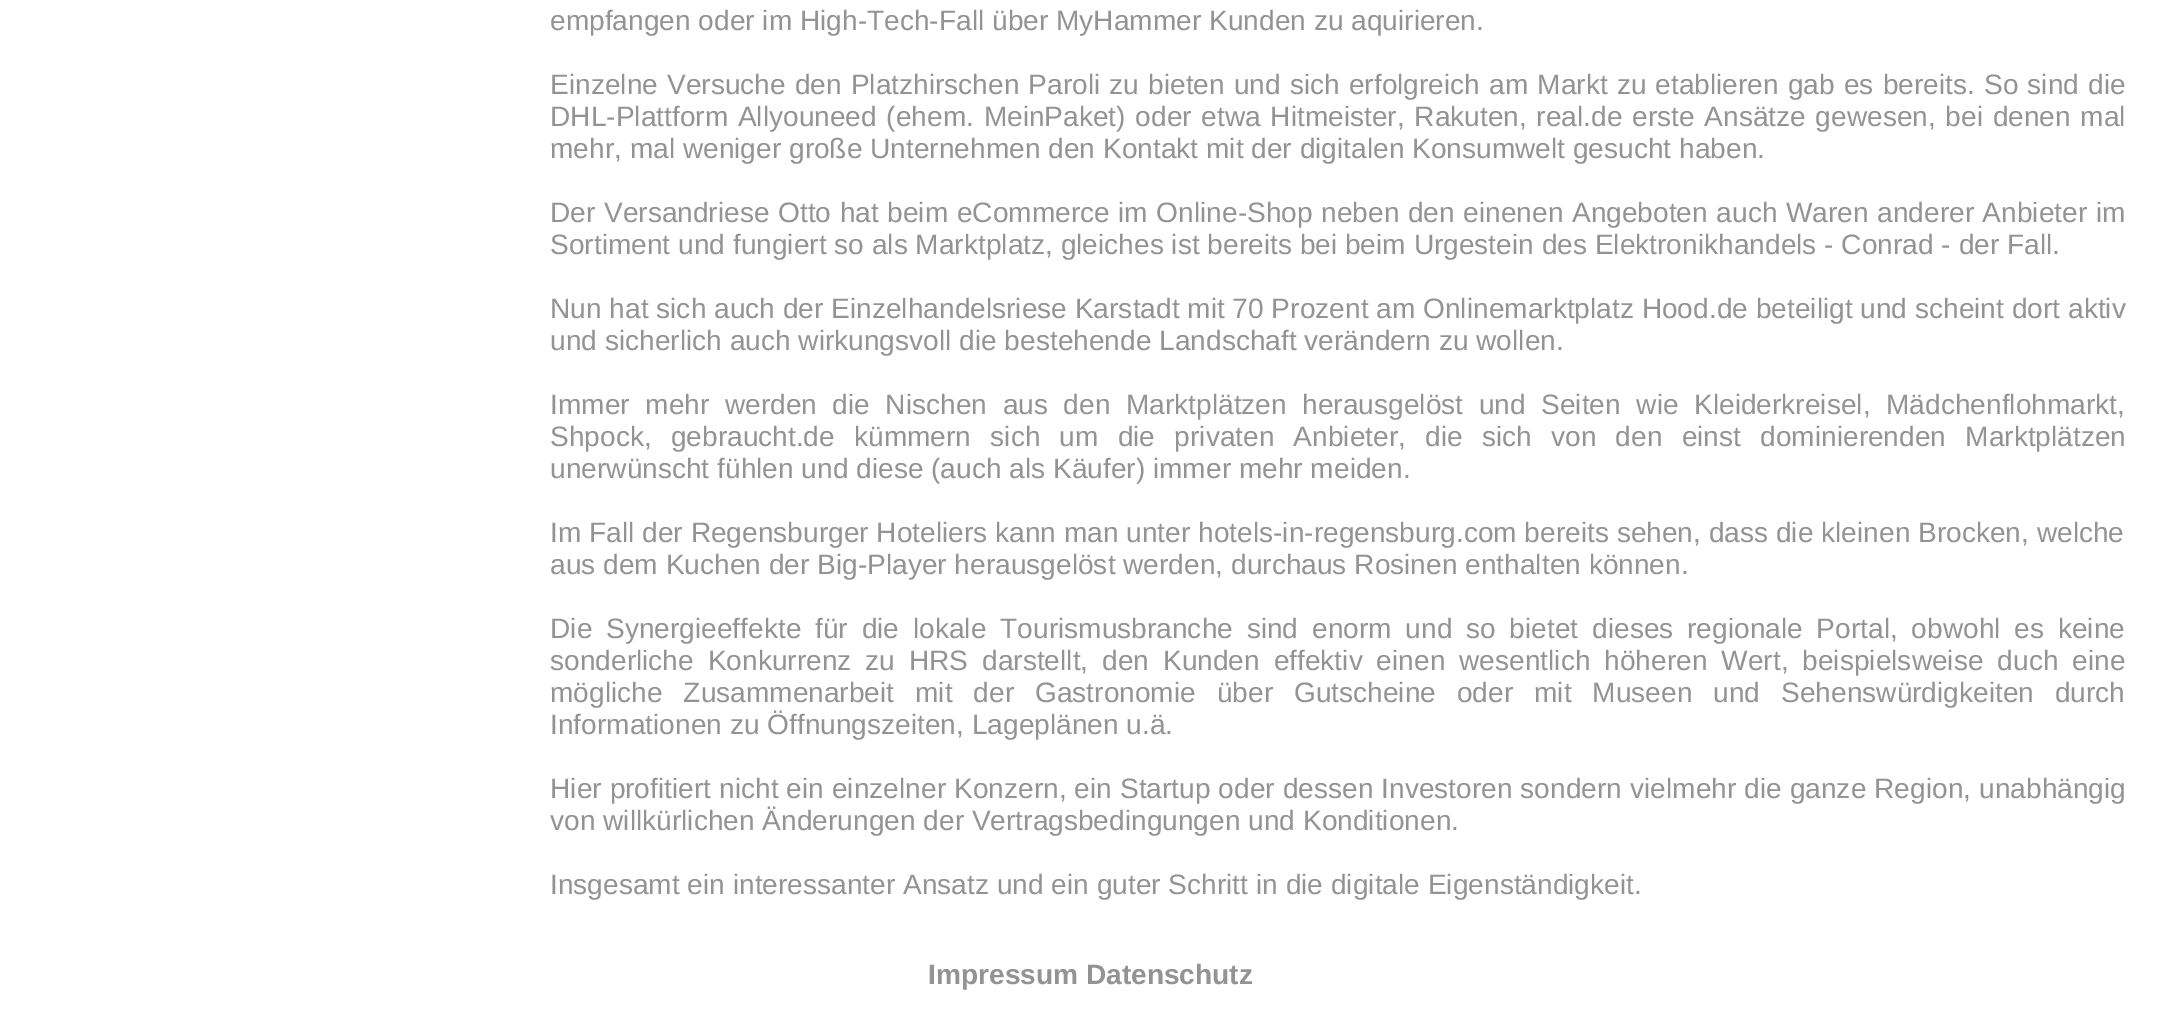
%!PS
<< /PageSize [2162 1033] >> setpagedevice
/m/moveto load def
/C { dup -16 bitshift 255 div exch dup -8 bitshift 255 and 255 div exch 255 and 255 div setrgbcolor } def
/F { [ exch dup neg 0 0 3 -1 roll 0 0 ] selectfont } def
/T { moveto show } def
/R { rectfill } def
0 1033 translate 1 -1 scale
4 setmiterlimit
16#FFFFFF C
0 0 2162 1033 R
/LiberationSans-Regular 28.1 F
16#939393 C
(empfangen oder im High-Tech-Fall über MyHammer Kunden zu aquirieren.) 550 30 T
550 94 m 1.3 0 32 (Einzelne Versuche den Platzhirschen Paroli zu bieten und sich erfolgreich am Markt zu etablieren gab es bereits. So sind die) widthshow
550 126 m 1.9 0 32 (DHL-Plattform Allyouneed \(ehem. MeinPaket\) oder etwa Hitmeister, Rakuten, real.de erste Ansätze gewesen, bei denen mal) widthshow
(mehr, mal weniger große Unternehmen den Kontakt mit der digitalen Konsumwelt gesucht haben.) 550 158 T
550 222 m .75 0 32 (Der Versandriese Otto hat beim eCommerce im Online-Shop neben den einenen Angeboten auch Waren anderer Anbieter im) widthshow
(Sortiment und fungiert so als Marktplatz, gleiches ist bereits bei beim Urgestein des Elektronikhandels - Conrad - der Fall.) 550 254 T
(Nun hat sich auch der Einzelhandelsriese Karstadt mit 70 Prozent am Onlinemarktplatz Hood.de beteiligt und scheint dort aktiv) 550 318 T
(und sicherlich auch wirkungsvoll die bestehende Landschaft verändern zu wollen.) 550 350 T
550 414 m 7.75 0 32 (Immer mehr werden die Nischen aus den Marktplätzen herausgelöst und Seiten wie Kleiderkreisel, Mädchenflohmarkt,) widthshow
550 446 m 11.4 0 32 (Shpock, gebraucht.de kümmern sich um die privaten Anbieter, die sich von den einst dominierenden Marktplätzen) widthshow
(unerwünscht fühlen und diese \(auch als Käufer\) immer mehr meiden.) 550 478 T
(Im Fall der Regensburger Hoteliers kann man unter hotels-in-regensburg.com bereits sehen, dass die kleinen Brocken, welche) 550 542 T
(aus dem Kuchen der Big-Player herausgelöst werden, durchaus Rosinen enthalten können.) 550 574 T
550 638 m 6 0 32 (Die Synergieeffekte für die lokale Tourismusbranche sind enorm und so bietet dieses regionale Portal, obwohl es keine) widthshow
550 670 m 6.1 0 32 (sonderliche Konkurrenz zu HRS darstellt, den Kunden effektiv einen wesentlich höheren Wert, beispielsweise duch eine) widthshow
550 702 m 13.1 0 32 (mögliche Zusammenarbeit mit der Gastronomie über Gutscheine oder mit Museen und Sehenswürdigkeiten durch) widthshow
(Informationen zu Öffnungszeiten, Lageplänen u.ä.) 550 734 T
550 798 m .2 0 32 (Hier profitiert nicht ein einzelner Konzern, ein Startup oder dessen Investoren sondern vielmehr die ganze Region, unabhängig) widthshow
(von willkürlichen Änderungen der Vertragsbedingungen und Konditionen.) 550 830 T
(Insgesamt ein interessanter Ansatz und ein guter Schritt in die digitale Eigenständigkeit.) 550 894 T
/LiberationSans-Bold 28.1 F
(Impressum Datenschutz) 928 984 T
showpage
